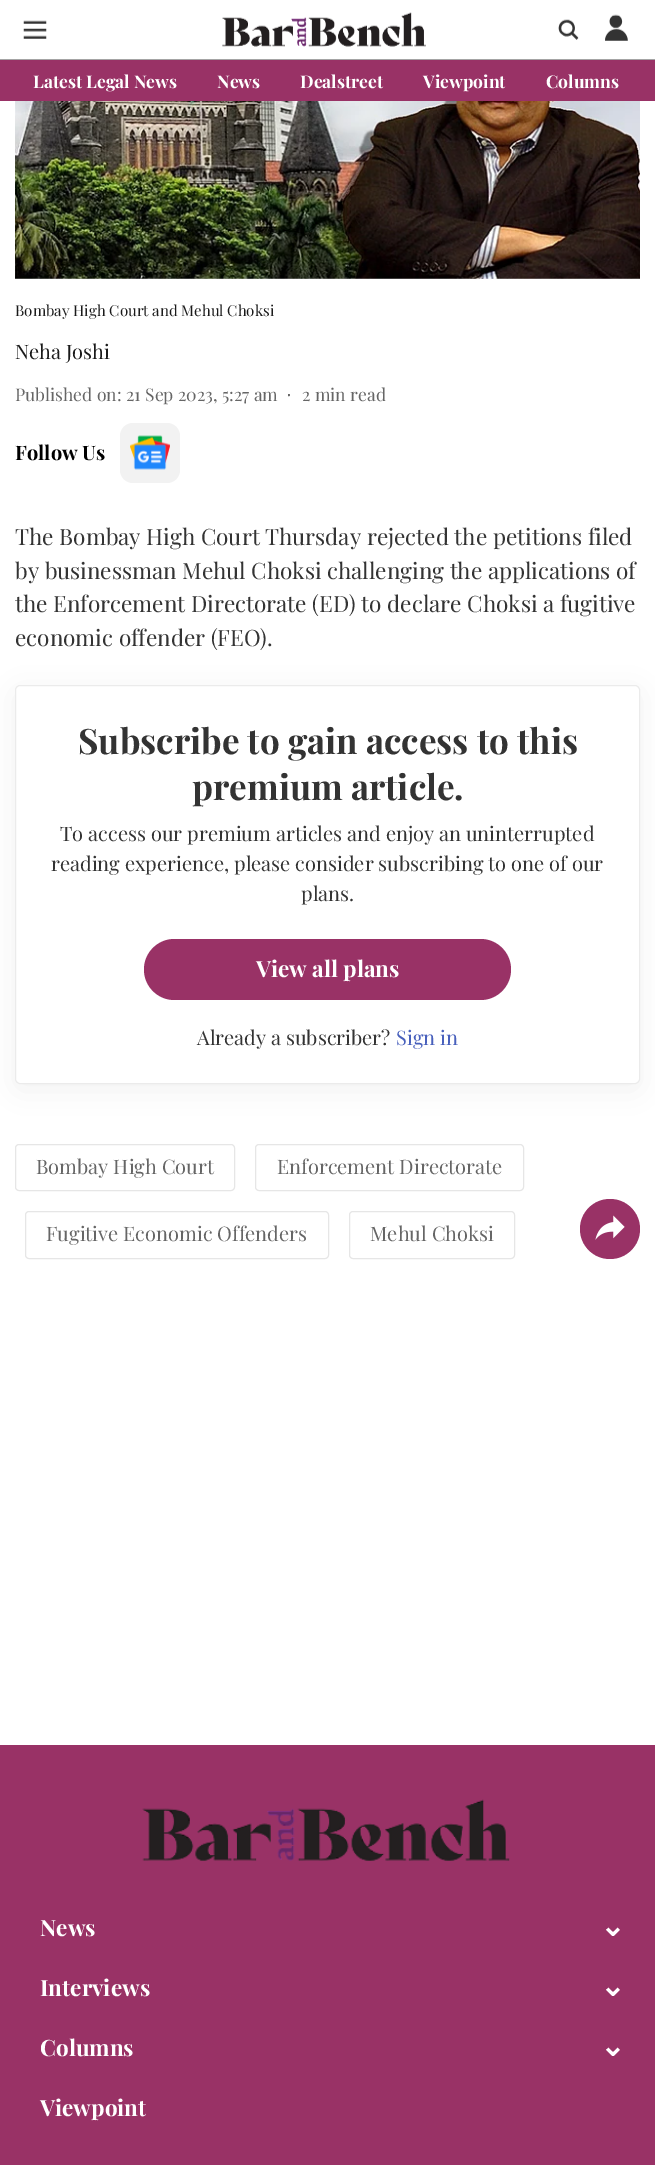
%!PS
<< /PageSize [655 2165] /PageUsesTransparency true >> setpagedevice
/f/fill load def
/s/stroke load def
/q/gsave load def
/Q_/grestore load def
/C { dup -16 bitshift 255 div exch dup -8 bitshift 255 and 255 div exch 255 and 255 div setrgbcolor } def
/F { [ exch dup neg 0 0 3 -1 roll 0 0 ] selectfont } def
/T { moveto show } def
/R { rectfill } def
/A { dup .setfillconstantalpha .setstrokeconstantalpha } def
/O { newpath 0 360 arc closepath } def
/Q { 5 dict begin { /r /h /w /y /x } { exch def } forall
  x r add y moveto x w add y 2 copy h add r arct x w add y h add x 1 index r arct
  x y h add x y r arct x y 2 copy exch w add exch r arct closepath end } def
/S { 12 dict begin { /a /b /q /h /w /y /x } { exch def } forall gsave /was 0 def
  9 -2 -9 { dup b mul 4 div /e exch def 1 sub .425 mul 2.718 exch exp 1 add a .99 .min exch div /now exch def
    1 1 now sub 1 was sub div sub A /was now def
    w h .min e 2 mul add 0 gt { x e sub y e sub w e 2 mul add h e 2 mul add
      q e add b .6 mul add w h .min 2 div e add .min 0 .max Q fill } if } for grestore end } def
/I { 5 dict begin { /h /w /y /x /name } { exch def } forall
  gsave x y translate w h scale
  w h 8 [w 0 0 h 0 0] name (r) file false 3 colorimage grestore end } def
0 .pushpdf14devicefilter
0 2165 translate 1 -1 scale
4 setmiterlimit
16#FFFFFF C
0 0 655 2165 R
16#A4A4A4 C
0 59 655 1 R
(1.rgb) 23 20 24 19 I
(2.rgb) 222 12 204 35 I
(3.rgb) 558 19 21 21 I
(4.rgb) 605 14 23 27 I
16#993266 C
0 60 655 41 R
/PlayfairDisplay-Bold 17.5 F
16#FFFFFF C
(Latest Legal News) 33 88 T
(News) 217 88 T
(Dealstreet) 300 88 T
(Viewpoint) 423 88 T
(Columns) 546 88 T
(5.rgb) 15 101 625 178 I
/PlayfairDisplay-Regular 15 F
16#1A1A1A C
(Bombay High Court and Mehul Choksi) 15 316 T
/PlayfairDisplay-Regular 20 F
(Neha Joshi) 15 359 T
/PlayfairDisplay-Regular 17.5 F
16#666666 C
(Published on: 21 Sep 2023, 5:27 am) 15 401 T
q
288 394 4 4 rectclip
288.8 395 1.2 O f
Q_
(2 min read) 302 401 T
/PlayfairDisplay-Bold 20 F
16#000000 C
(Follow Us) 15 460 T
16#F2F2F2 C
120 423 60 60 13 Q f
(6.rgb) 130 435 40 35 I
16#993266 C
610 1229 30 O f
(7.rgb) 595 1215 30 25 I
/PlayfairDisplay-Regular 22.5 F
16#333333 C
(The Bombay High Court Thursday rejected the petitions filed) 15 545 T
(by businessman Mehul Choksi challenging the applications of) 15 579 T
(the Enforcement Directorate \(ED\) to declare Choksi a fugitive) 15 612 T
16#000000 C
15 691 625 399 5 15 .06 S
16#333333 C
(economic offender \(FEO\).) 15 646 T
16#FFFFFF C
15.5 685.5 624 398 4.5 Q q f Q_
16#EBEBEB C
s
/PlayfairDisplay-Bold 35 F
16#333333 C
(Subscribe to gain access to this) 78 754 T
(premium article.) 192 800 T
/PlayfairDisplay-Regular 20 F
(To access our premium articles and enjoy an uninterrupted) 60 841 T
(reading experience, please consider subscribing to one of our) 51 871 T
(plans.) 301 901 T
16#993266 C
144 939 367 61 30.5 Q f
/PlayfairDisplay-Bold 22.5 F
16#FFFFFF C
(View all plans) 256 977 T
/PlayfairDisplay-Regular 20 F
16#333333 C
(Already a subscriber?) 197 1045 T
16#4860BC C
(Sign in) 396 1045 T
16#E6E6E6 C
15.5 1144.5 219 46 3.5 Q s
16#666666 C
(Bombay High Court) 36 1174 T
16#E6E6E6 C
255.5 1144.5 268 46 3.5 Q s
16#666666 C
(Enforcement Directorate) 277 1174 T
16#E6E6E6 C
25.5 1211.5 303 47 3.5 Q s
16#666666 C
(Fugitive Economic Offenders) 46 1241 T
16#E6E6E6 C
349.5 1211.5 165 47 3.5 Q s
16#666666 C
(Mehul Choksi) 370 1241 T
16#993266 C
0 1745 655 420 R
(8.rgb) 142 1799 368 62 I
/PlayfairDisplay-Bold 22.5 F
16#FFFFFF C
(News) 40 1936 T
/DejaVuSans-Bold 30 F
(⌄) 600 1936 T
/PlayfairDisplay-Bold 22.5 F
(Interviews) 40 1996 T
/DejaVuSans-Bold 30 F
(⌄) 600 1996 T
/PlayfairDisplay-Bold 22.5 F
(Columns) 40 2056 T
/DejaVuSans-Bold 30 F
(⌄) 600 2056 T
/PlayfairDisplay-Bold 22.5 F
(Viewpoint) 40 2116 T
.poppdf14devicefilter showpage
